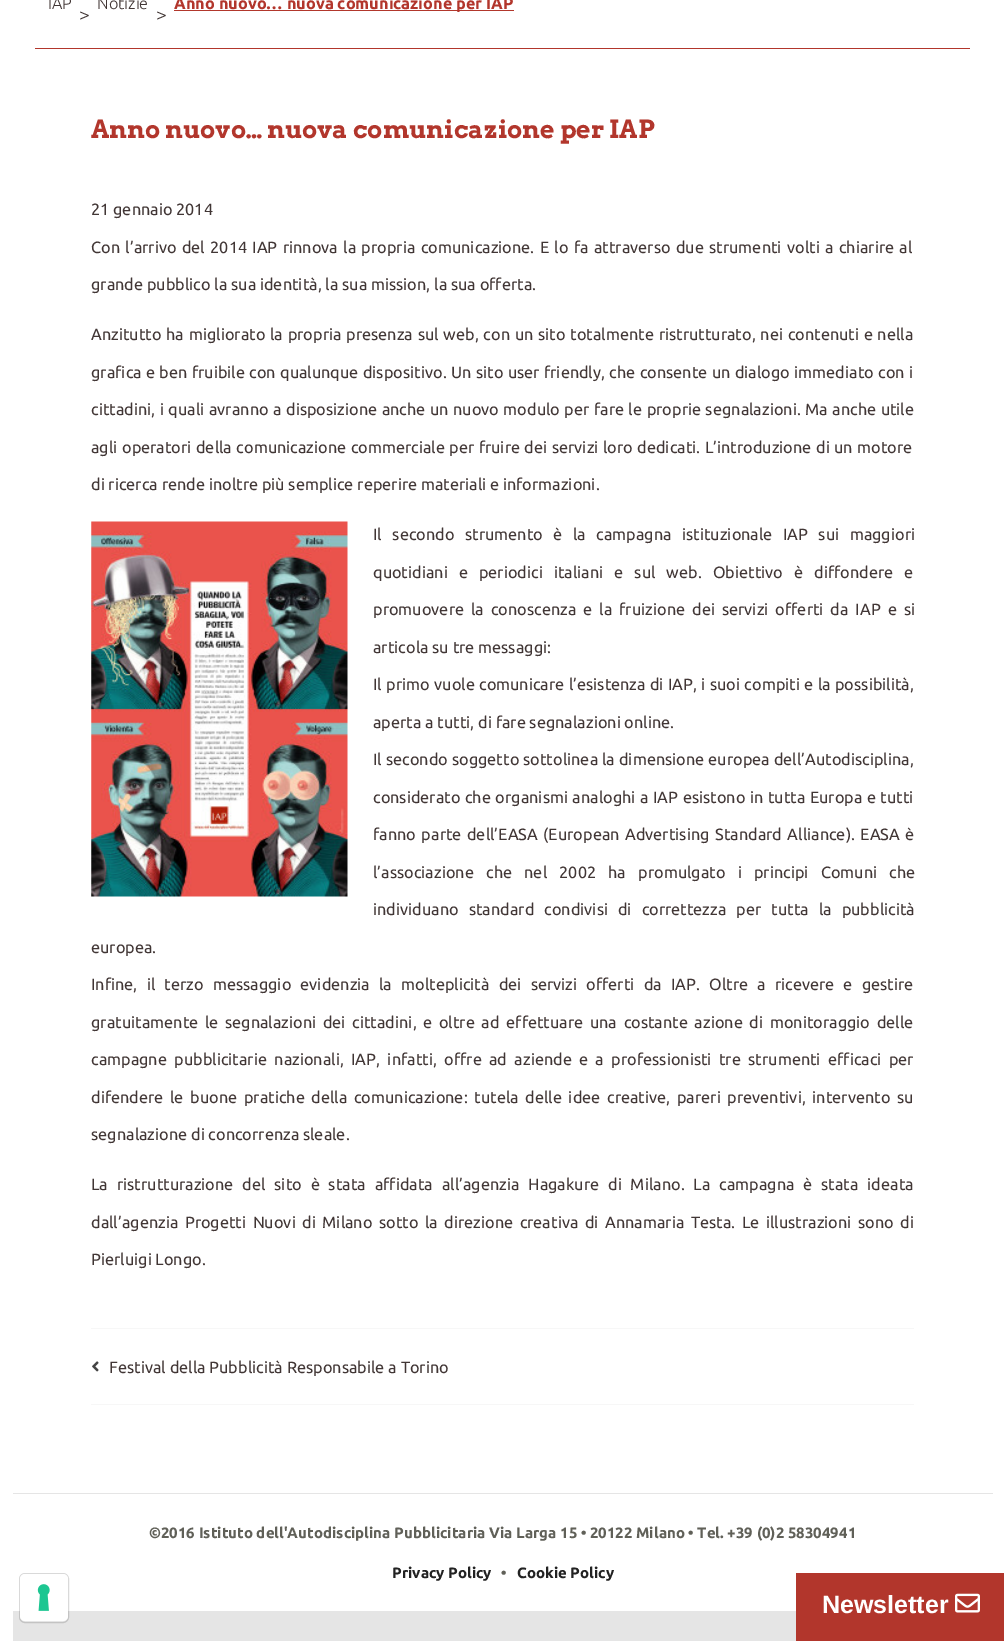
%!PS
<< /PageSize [1004 1641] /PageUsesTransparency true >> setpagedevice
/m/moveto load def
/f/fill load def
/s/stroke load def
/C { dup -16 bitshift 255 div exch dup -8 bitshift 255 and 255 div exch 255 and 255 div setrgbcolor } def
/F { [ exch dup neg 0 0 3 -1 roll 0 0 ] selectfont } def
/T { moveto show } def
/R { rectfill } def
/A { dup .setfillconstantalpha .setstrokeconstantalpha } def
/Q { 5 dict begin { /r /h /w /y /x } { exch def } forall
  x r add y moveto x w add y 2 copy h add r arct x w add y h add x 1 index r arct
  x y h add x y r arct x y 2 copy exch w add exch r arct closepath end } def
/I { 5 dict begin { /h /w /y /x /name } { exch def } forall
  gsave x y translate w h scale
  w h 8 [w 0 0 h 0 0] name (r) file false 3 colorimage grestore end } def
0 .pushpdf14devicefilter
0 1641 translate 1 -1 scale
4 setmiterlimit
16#FFFFFF C
0 0 1004 1641 R
16#B2362C C
35 48 935 1 R
/Ubuntu-Light 16.25 F
16#413635 C
(IAP) 48 9 T
(Notizie) 97 9 T
16#B2372C C
174 10 340 1 R
/Ubuntu-Bold 16.25 F
16#B2362C C
(Anno nuovo… nuova comunicazione per IAP) 174 9 T
/Ubuntu-Light 19 F
16#413635 C
(>) 79 21 T
(>) 156 21 T
/Arvo-Bold 25 F
16#B2362C C
(Anno nuovo… nuova comunicazione per IAP) 91 138 T
/Ubuntu-Regular 16.25 F
16#413635 C
(21 gennaio 2014) 91 215 T
91 253 m 1.6 0 32 (Con l’arrivo del 2014 IAP rinnova la propria comunicazione. E lo fa attraverso due strumenti volti a chiarire al) widthshow
(grande pubblico la sua identità, la sua mission, la sua offerta.) 91 290 T
91 340 m 1 0 32 (Anzitutto ha migliorato la propria presenza sul web, con un sito totalmente ristrutturato, nei contenuti e nella) widthshow
91 378 m .6 0 32 (grafica e ben fruibile con qualunque dispositivo. Un sito user friendly, che consente un dialogo immediato con i) widthshow
91 415 m .75 0 32 (cittadini, i quali avranno a disposizione anche un nuovo modulo per fare le proprie segnalazioni. Ma anche utile) widthshow
91 453 m .75 0 32 (agli operatori della comunicazione commerciale per fruire dei servizi loro dedicati. L’introduzione di un motore) widthshow
(di ricerca rende inoltre più semplice reperire materiali e informazioni.) 91 490 T
(1.rgb) 91 521 257 376 I
373 540 m 6.75 0 32 (Il secondo strumento è la campagna istituzionale IAP sui maggiori) widthshow
373 578 m 7.25 0 32 (quotidiani e periodici italiani e sul web. Obiettivo è diffondere e) widthshow
373 615 m 3.25 0 32 (promuovere la conoscenza e la fruizione dei servizi offerti da IAP e si) widthshow
(articola su tre messaggi:) 373 653 T
373 690 m .6 0 32 (Il primo vuole comunicare l’esistenza di IAP, i suoi compiti e la possibilità,) widthshow
(aperta a tutti, di fare segnalazioni online.) 373 728 T
373 765 m .25 0 32 (Il secondo soggetto sottolinea la dimensione europea dell’Autodisciplina,) widthshow
373 803 m .8 0 32 (considerato che organismi analoghi a IAP esistono in tutta Europa e tutti) widthshow
373 840 m 1.75 0 32 (fanno parte dell’EASA \(European Advertising Standard Alliance\). EASA è) widthshow
373 878 m 8.5 0 32 (l’associazione che nel 2002 ha promulgato i principi Comuni che) widthshow
373 915 m 6.25 0 32 (individuano standard condivisi di correttezza per tutta la pubblicità) widthshow
(europea.) 91 953 T
91 990 m 5.4 0 32 (Infine, il terzo messaggio evidenzia la molteplicità dei servizi offerti da IAP. Oltre a ricevere e gestire) widthshow
91 1028 m 2.9 0 32 (gratuitamente le segnalazioni dei cittadini, e oltre ad effettuare una costante azione di monitoraggio delle) widthshow
91 1065 m 3.6 0 32 (campagne pubblicitarie nazionali, IAP, infatti, offre ad aziende e a professionisti tre strumenti efficaci per) widthshow
91 1103 m 2.9 0 32 (difendere le buone pratiche della comunicazione: tutela delle idee creative, pareri preventivi, intervento su) widthshow
(segnalazione di concorrenza sleale.) 91 1140 T
91 1190 m 5.1 0 32 (La ristrutturazione del sito è stata affidata all’agenzia Hagakure di Milano. La campagna è stata ideata) widthshow
91 1228 m 2.75 0 32 (dall’agenzia Progetti Nuovi di Milano sotto la direzione creativa di Annamaria Testa. Le illustrazioni sono di) widthshow
(Pierluigi Longo.) 91 1265 T
16#F7F7F7 C
91 1328 823 1 R
91 1404 823 1 R
(2.rgb) 92 1361 7 11 I
16#413635 C
(Festival della Pubblicità Responsabile a Torino) 109 1373 T
16#B2362C C
796 1573 208 68 R
/LiberationSans-Bold 25 F
16#FFFFFF C
(Newsletter) 822 1613 T
(3.rgb) 955 1593 25 20 I
16#E5E5E5 C
13 1493 980 1 R
/Ubuntu-Bold 15 F
16#606058 C
(©2016 Istituto dell'Autodisciplina Pubblicitaria Via Larga 15 • 20122 Milano • Tel. +39 \(0\)2 58304941) 149 1538 T
16#222222 C
(Privacy Policy) 392 1578 T
16#606058 C
(•) 501 1578 T
16#222222 C
(Cookie Policy) 517 1578 T
16#E5E5E5 C
13 1611 783 30 R
0.15 A
16#000000 C
19.5 1573.5 49 49 5.5 Q s
1 A
16#FFFFFF C
20 1574 48 47 5 Q f
(4.rgb) 37 1584 13 27 I
.poppdf14devicefilter showpage
